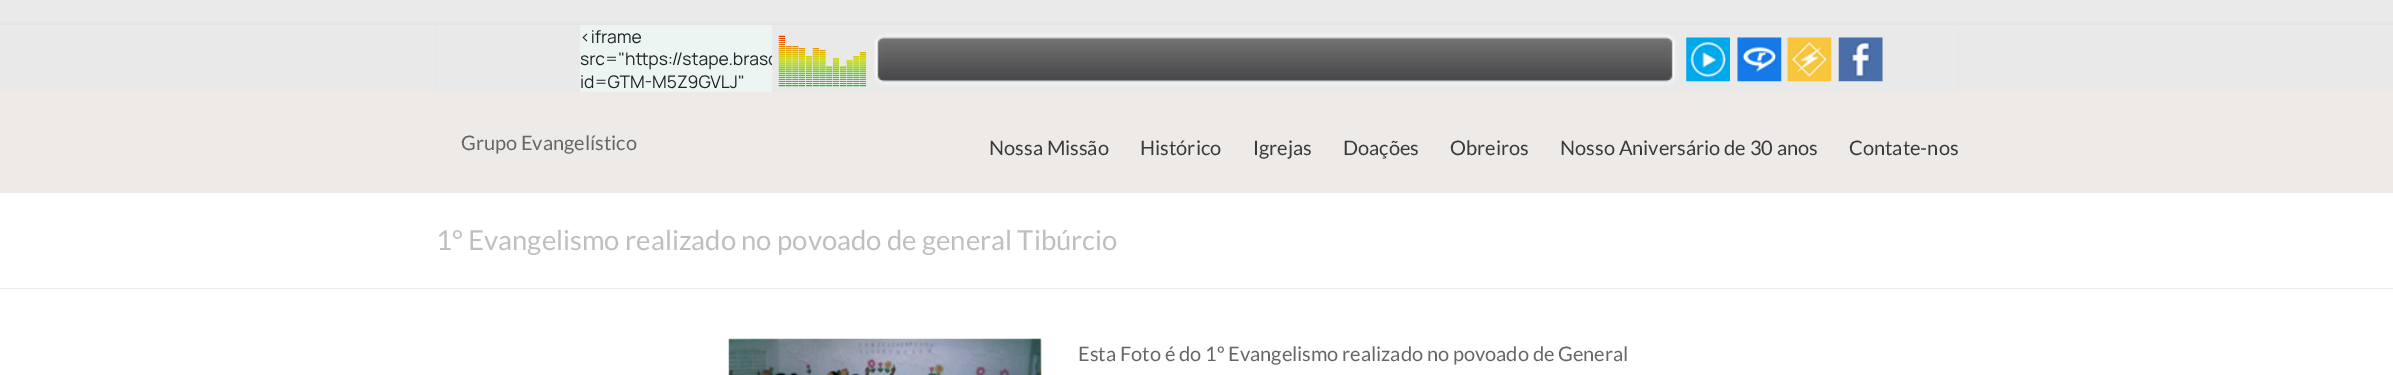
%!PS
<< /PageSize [2393 375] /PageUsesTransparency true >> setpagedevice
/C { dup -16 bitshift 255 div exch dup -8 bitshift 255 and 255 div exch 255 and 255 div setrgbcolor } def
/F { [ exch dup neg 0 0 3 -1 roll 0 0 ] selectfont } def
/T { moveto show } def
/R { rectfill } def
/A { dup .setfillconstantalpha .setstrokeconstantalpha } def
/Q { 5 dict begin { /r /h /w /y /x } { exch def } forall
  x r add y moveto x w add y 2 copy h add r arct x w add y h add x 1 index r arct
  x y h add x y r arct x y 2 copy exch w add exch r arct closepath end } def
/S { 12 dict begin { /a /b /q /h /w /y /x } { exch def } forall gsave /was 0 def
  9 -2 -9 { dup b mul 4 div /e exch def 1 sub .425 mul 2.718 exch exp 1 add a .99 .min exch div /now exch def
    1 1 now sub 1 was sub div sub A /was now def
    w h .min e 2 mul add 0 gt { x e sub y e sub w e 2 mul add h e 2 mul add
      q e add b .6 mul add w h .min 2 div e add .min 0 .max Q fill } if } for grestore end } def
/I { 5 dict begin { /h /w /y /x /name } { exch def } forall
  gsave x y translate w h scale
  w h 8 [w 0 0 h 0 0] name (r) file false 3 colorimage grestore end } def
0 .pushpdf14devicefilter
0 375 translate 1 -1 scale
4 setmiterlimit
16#EAEAEA C
0 0 2393 375 R
16#646464 C
0 28 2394 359 0 4 .3 S
16#FFFFFF C
0 193 2393 182 R
16#E9E9E9 C
0 25 2393 65 R
16#EDEAE8 C
0 90 2393 103 R
(1.rgb) 436 25 1523 67 I
16#EAEAEA C
0 191 2393 1 R
/Lato-Regular 20 F
16#666666 C
(Grupo Evangelístico) 461 150 T
16#3A3A3A C
(Nossa Missão) 989 155 T
(Histórico) 1140 155 T
(Igrejas) 1253 155 T
(Doações) 1343 155 T
(Obreiros) 1450 155 T
(Nosso Aniversário de 30 anos) 1560 155 T
(Contate-nos) 1849 155 T
16#EAEAEA C
0 288 2393 1 R
/Lato-Regular 27.5 F
16#BFBFBF C
(1° Evangelismo realizado no povoado de general Tibúrcio) 436 250 T
(2.rgb) 728 338 314 37 I
/Lato-Regular 20 F
16#666666 C
(Esta Foto é do 1º Evangelismo realizado no povoado de General) 1078 361 T
.poppdf14devicefilter showpage
